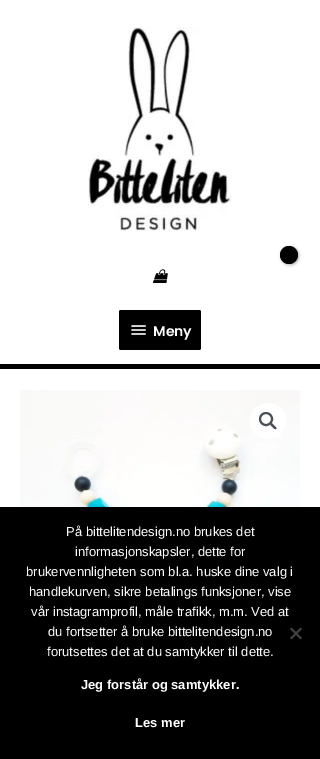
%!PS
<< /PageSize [320 759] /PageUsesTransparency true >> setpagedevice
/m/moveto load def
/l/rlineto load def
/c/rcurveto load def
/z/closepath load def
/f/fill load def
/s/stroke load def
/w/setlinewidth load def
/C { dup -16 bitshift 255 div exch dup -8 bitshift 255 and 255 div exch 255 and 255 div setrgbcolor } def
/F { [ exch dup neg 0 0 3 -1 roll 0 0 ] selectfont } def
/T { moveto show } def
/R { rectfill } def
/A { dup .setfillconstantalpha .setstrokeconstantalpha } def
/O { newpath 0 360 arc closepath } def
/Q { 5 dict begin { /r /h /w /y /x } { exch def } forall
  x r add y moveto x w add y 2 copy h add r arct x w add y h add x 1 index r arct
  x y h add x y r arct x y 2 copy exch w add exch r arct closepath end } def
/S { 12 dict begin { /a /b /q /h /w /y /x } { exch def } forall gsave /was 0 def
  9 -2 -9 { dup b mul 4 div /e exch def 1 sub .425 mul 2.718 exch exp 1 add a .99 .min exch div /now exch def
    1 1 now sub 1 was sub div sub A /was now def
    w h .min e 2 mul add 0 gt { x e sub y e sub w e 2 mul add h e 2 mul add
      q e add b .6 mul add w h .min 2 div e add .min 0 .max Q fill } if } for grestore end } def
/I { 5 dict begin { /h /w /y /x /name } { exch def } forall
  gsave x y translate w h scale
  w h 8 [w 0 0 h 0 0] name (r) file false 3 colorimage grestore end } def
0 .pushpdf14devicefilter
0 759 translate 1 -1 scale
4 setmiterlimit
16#FFFFFF C
0 0 320 759 R
16#000000 C
0 364 320 5 R
(1.rgb) 88 27 144 204 I
281 247 18 18 9 1.5 .3 S
289 255 9 O f
(2.rgb) 152 269 16 14 I
119 310 82 40 2 Q f
(3.rgb) 131 325 15 10 I
/Poppins-SemiBold 14 F
16#FFFFFF C
(Meny) 153 336 T
(4.rgb) 20 390 280 117 I
268 421 18 O f
16#4B4F58 C
2 w
266 419 6 O s
270.5 423.5 m 1 -1.5 3 1.5 3.5 2 c .5 .5 3.5 2.5 2 3.5 c -1 1 -3 -1.5 -3.5 -2 c -.5 -.5 -3 -2.5 -2 -3.5 c z f
16#000000 C
0 507 320 252 R
/LiberationSans-Regular 13 F
16#FFFFFF C
(På bittelitendesign.no brukes det) 66 536 T
(informasjonskapsler, dette for) 75 556 T
(brukervennligheten som bl.a. huske dine valg i) 26 576 T
(handlekurven, sikre betalings funksjoner, vise) 29 596 T
(vår instagramprofil, måle trafikk, m.m. Ved at) 31 616 T
(du fortsetter å bruke bittelitendesign.no) 48 636 T
(forutsettes det at du samtykker til dette.) 47 656 T
16#404040 C
300.5 627.5 m 1.5 1.5 l -10.5 10.5 l -1.5 -1.5 l z f
290 629 m 1.5 -1.5 l 10.5 10.5 l -1.5 1.5 l z f
/LiberationSans-Bold 13 F
16#FFFFFF C
(Jeg forstår og samtykker.) 81 689 T
(Les mer) 135 727 T
.poppdf14devicefilter showpage
